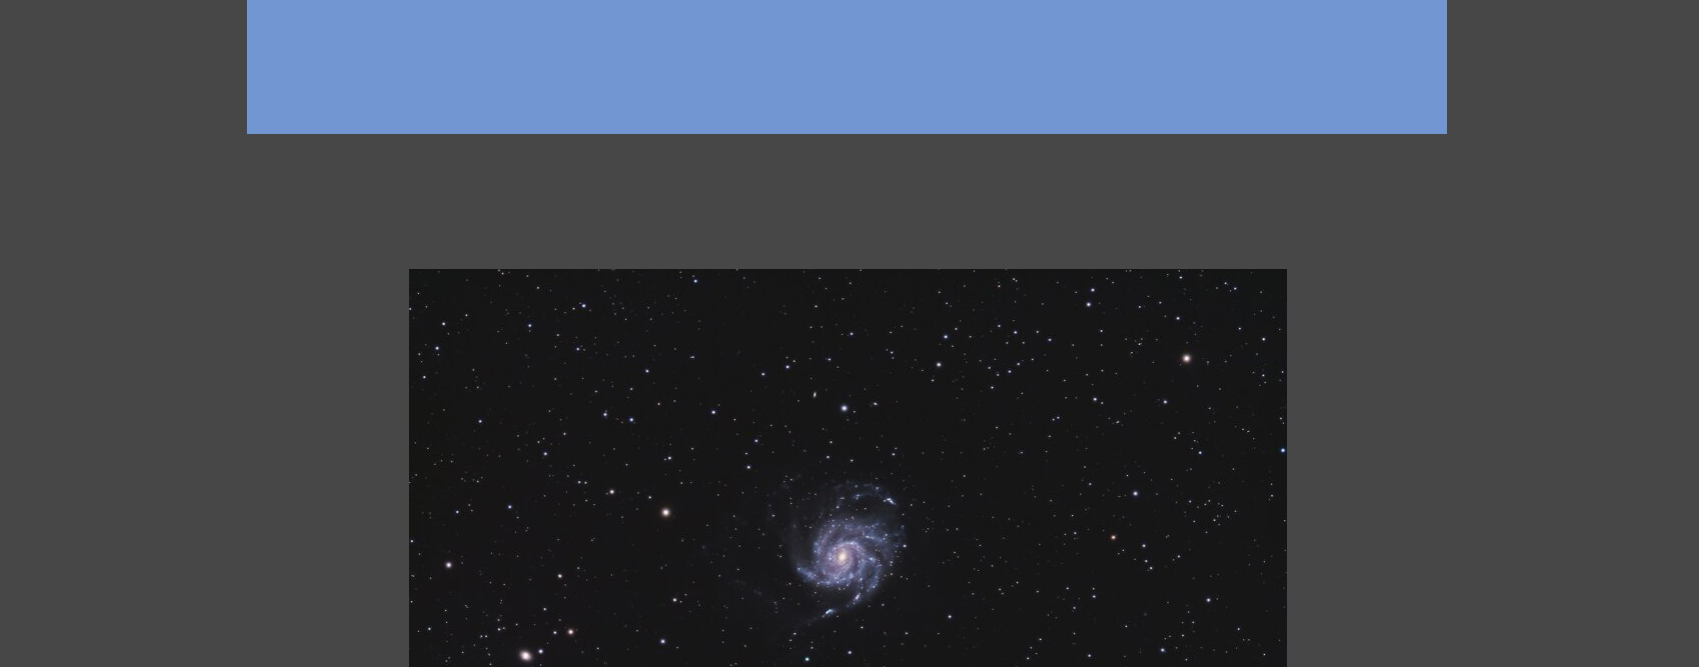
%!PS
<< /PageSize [1699 667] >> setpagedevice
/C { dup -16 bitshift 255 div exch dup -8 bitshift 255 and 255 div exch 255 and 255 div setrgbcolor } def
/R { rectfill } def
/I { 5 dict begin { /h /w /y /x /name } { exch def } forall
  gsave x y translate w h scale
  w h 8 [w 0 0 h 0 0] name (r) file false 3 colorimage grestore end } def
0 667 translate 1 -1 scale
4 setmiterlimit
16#474747 C
0 0 1699 667 R
16#7196D1 C
247 0 1200 134 R
(1.rgb) 409 269 878 398 I
showpage
